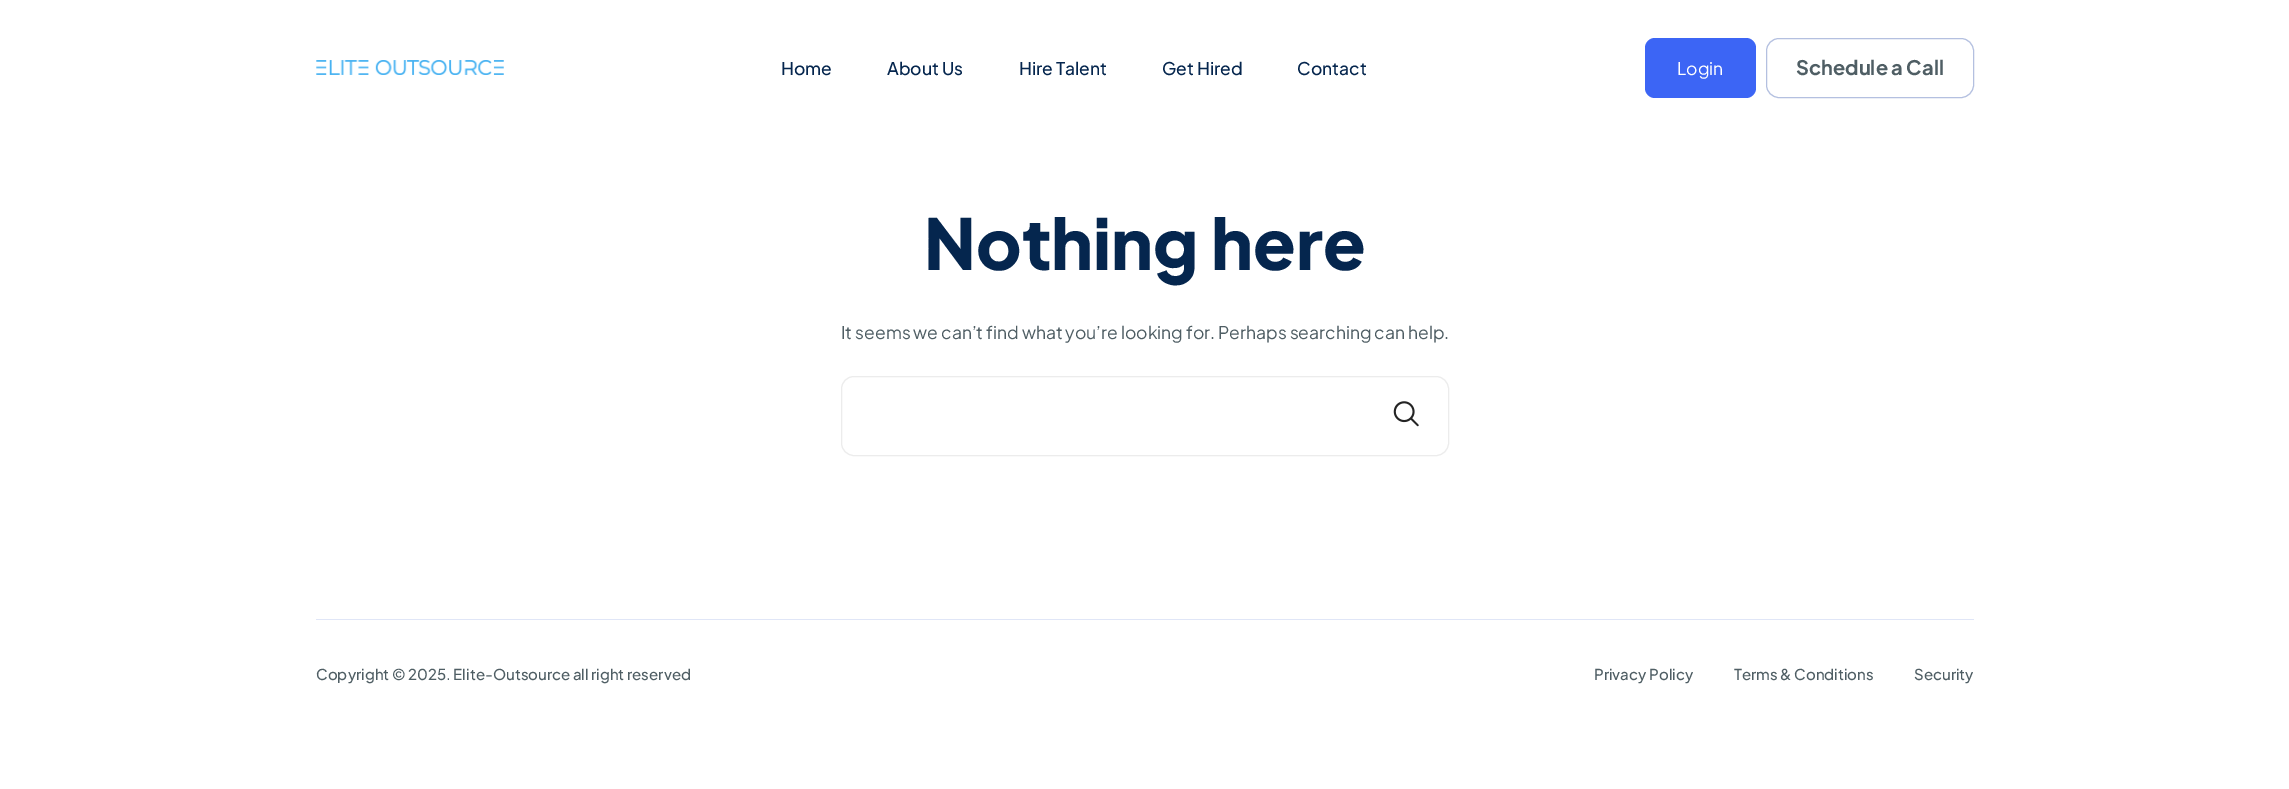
%!PS
<< /PageSize [2289 789] >> setpagedevice
/f/fill load def
/s/stroke load def
/C { dup -16 bitshift 255 div exch dup -8 bitshift 255 and 255 div exch 255 and 255 div setrgbcolor } def
/F { [ exch dup neg 0 0 3 -1 roll 0 0 ] selectfont } def
/T { moveto show } def
/R { rectfill } def
/Q { 5 dict begin { /r /h /w /y /x } { exch def } forall
  x r add y moveto x w add y 2 copy h add r arct x w add y h add x 1 index r arct
  x y h add x y r arct x y 2 copy exch w add exch r arct closepath end } def
/I { 5 dict begin { /h /w /y /x /name } { exch def } forall
  gsave x y translate w h scale
  w h 8 [w 0 0 h 0 0] name (r) file false 3 colorimage grestore end } def
0 789 translate 1 -1 scale
4 setmiterlimit
16#FFFFFF C
0 0 2289 789 R
(1.rgb) 316 60 188 15 I
/PlusJakartaSans-Medium 17.5 F
16#05264E C
(Home) 781 75 T
(About Us) 887 75 T
(Hire Talent) 1019 75 T
(Get Hired) 1162 75 T
(Contact) 1297 75 T
16#3C65F5 C
1645 38 111 60 10 Q f
/PlusJakartaSans-Regular 17.5 F
16#FFFFFF C
(Login) 1677 75 T
16#B4C0E0 C
1766.5 38.5 207 59 12.5 Q s
/PlusJakartaSans-Bold 20 F
16#4F5E64 C
(Schedule a Call) 1796 75 T
/PlusJakartaSans-ExtraBold 70 F
16#05264E C
(Nothing here) 924 270 T
/PlusJakartaSans-Regular 17.5 F
16#4F5E64 C
(It seems we can’t find what you’re looking for. Perhaps searching can help.) 841 339 T
16#ECECEC C
841.5 376.5 607 79 12.5 Q s
(2.rgb) 1393 401 26 26 I
16#E0E6F7 C
316 619 1658 1 R
/PlusJakartaSans-Medium 15 F
16#4F5E64 C
(Copyright © 2025. Elite-Outsource all right reserved) 316 680 T
(Privacy Policy) 1594 680 T
(Terms & Conditions) 1734 680 T
(Security) 1914 680 T
showpage
